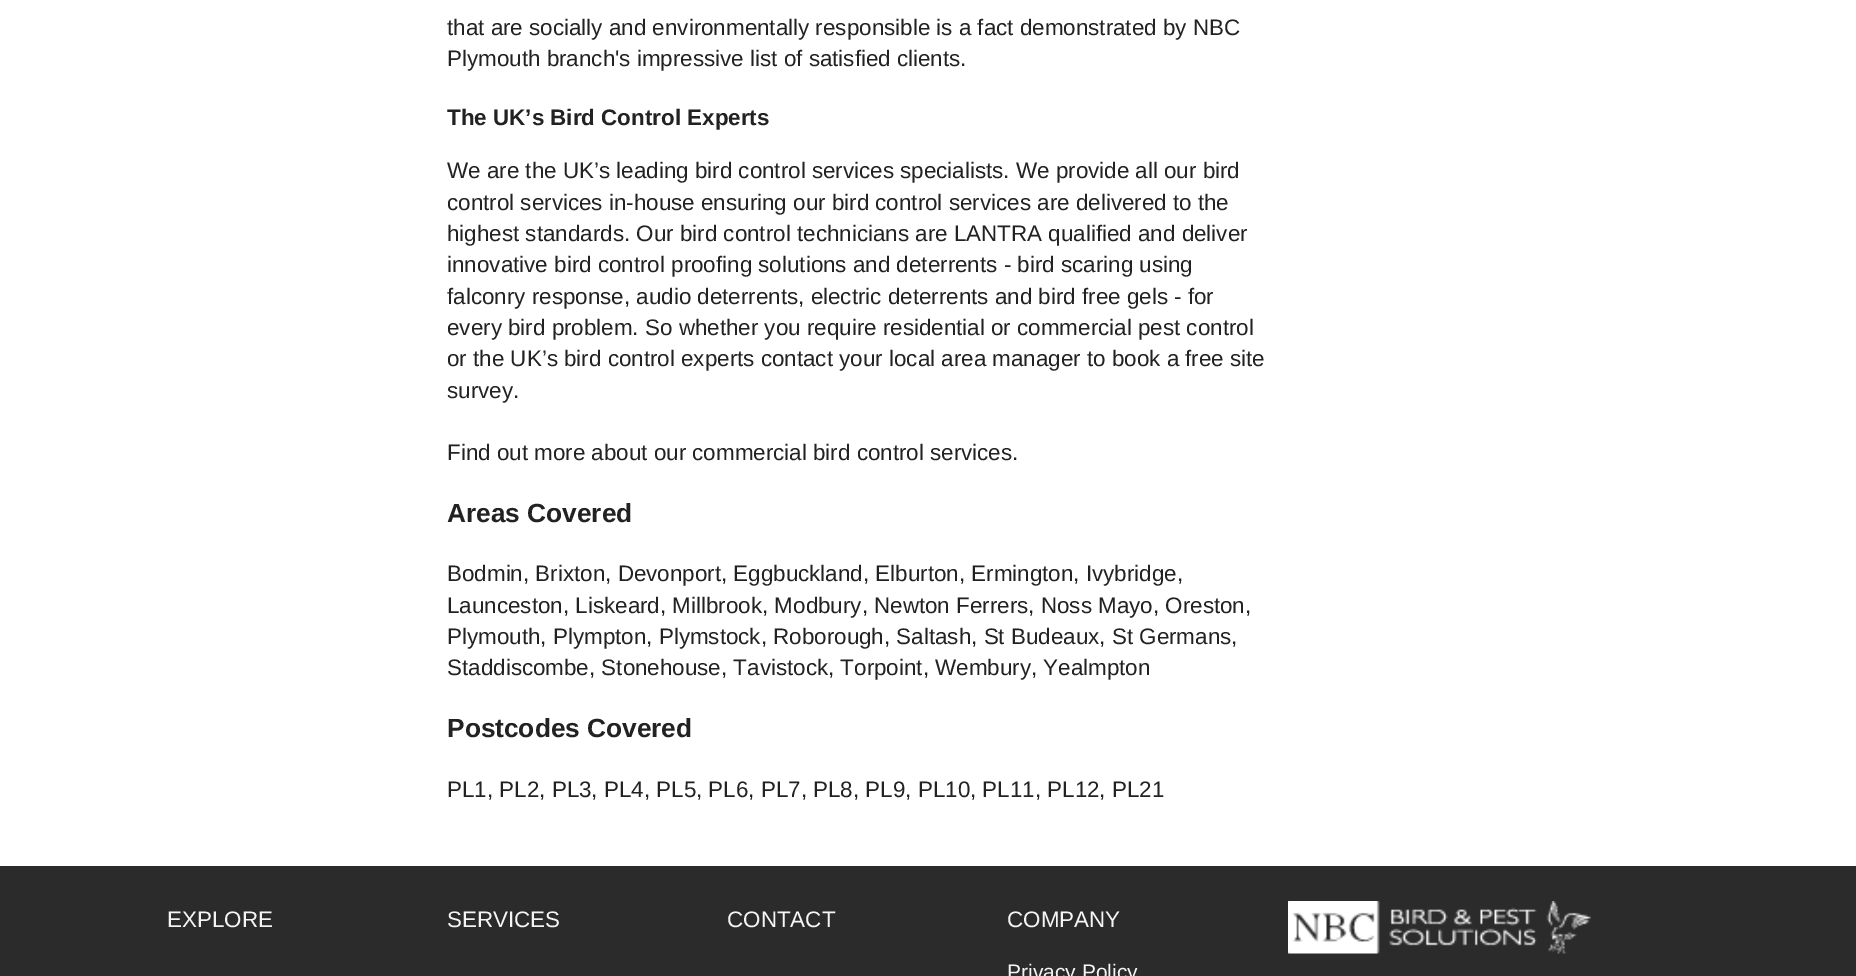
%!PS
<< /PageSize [1856 976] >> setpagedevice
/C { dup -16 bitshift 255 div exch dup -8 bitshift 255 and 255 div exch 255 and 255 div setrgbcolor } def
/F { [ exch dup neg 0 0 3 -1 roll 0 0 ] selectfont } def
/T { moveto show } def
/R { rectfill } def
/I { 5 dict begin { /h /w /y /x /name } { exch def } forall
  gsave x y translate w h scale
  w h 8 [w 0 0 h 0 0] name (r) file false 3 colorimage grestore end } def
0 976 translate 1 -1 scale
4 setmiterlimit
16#FFFFFF C
0 0 1856 976 R
/LiberationSans-Regular 22.4 F
16#222222 C
(that are socially and environmentally responsible is a fact demonstrated by NBC) 447 35 T
(Plymouth branch's impressive list of satisfied clients.) 447 66 T
/LiberationSans-Bold 22.4 F
(The UK’s Bird Control Experts) 447 125 T
/LiberationSans-Regular 22.4 F
(We are the UK’s leading bird control services specialists. We provide all our bird) 447 178 T
(control services in-house ensuring our bird control services are delivered to the) 447 210 T
(highest standards. Our bird control technicians are LANTRA qualified and deliver) 447 241 T
(innovative bird control proofing solutions and deterrents - bird scaring using) 447 272 T
(falconry response, audio deterrents, electric deterrents and bird free gels - for) 447 304 T
(every bird problem. So whether you require residential or commercial pest control) 447 335 T
(or the UK’s bird control experts contact your local area manager to book a free site) 447 366 T
(survey.) 447 398 T
(Find out more about our commercial bird control services.) 447 460 T
/LiberationSans-Bold 26.25 F
(Areas Covered) 447 522 T
/LiberationSans-Regular 22.4 F
(Bodmin, Brixton, Devonport, Eggbuckland, Elburton, Ermington, Ivybridge,) 447 581 T
(Launceston, Liskeard, Millbrook, Modbury, Newton Ferrers, Noss Mayo, Oreston,) 447 613 T
(Plymouth, Plympton, Plymstock, Roborough, Saltash, St Budeaux, St Germans,) 447 644 T
(Staddiscombe, Stonehouse, Tavistock, Torpoint, Wembury, Yealmpton) 447 675 T
/LiberationSans-Bold 26.25 F
(Postcodes Covered) 447 737 T
/LiberationSans-Regular 22.4 F
(PL1, PL2, PL3, PL4, PL5, PL6, PL7, PL8, PL9, PL10, PL11, PL12, PL21) 447 797 T
16#2B2B2B C
0 866 1856 110 R
16#F5F5F5 C
(EXPLORE) 167 927 T
(SERVICES) 447 927 T
(CONTACT) 727 927 T
(COMPANY) 1007 927 T
/LiberationSans-Regular 21 F
(Privacy Policy) 1007 979 T
(1.rgb) 1288 901 303 53 I
showpage
